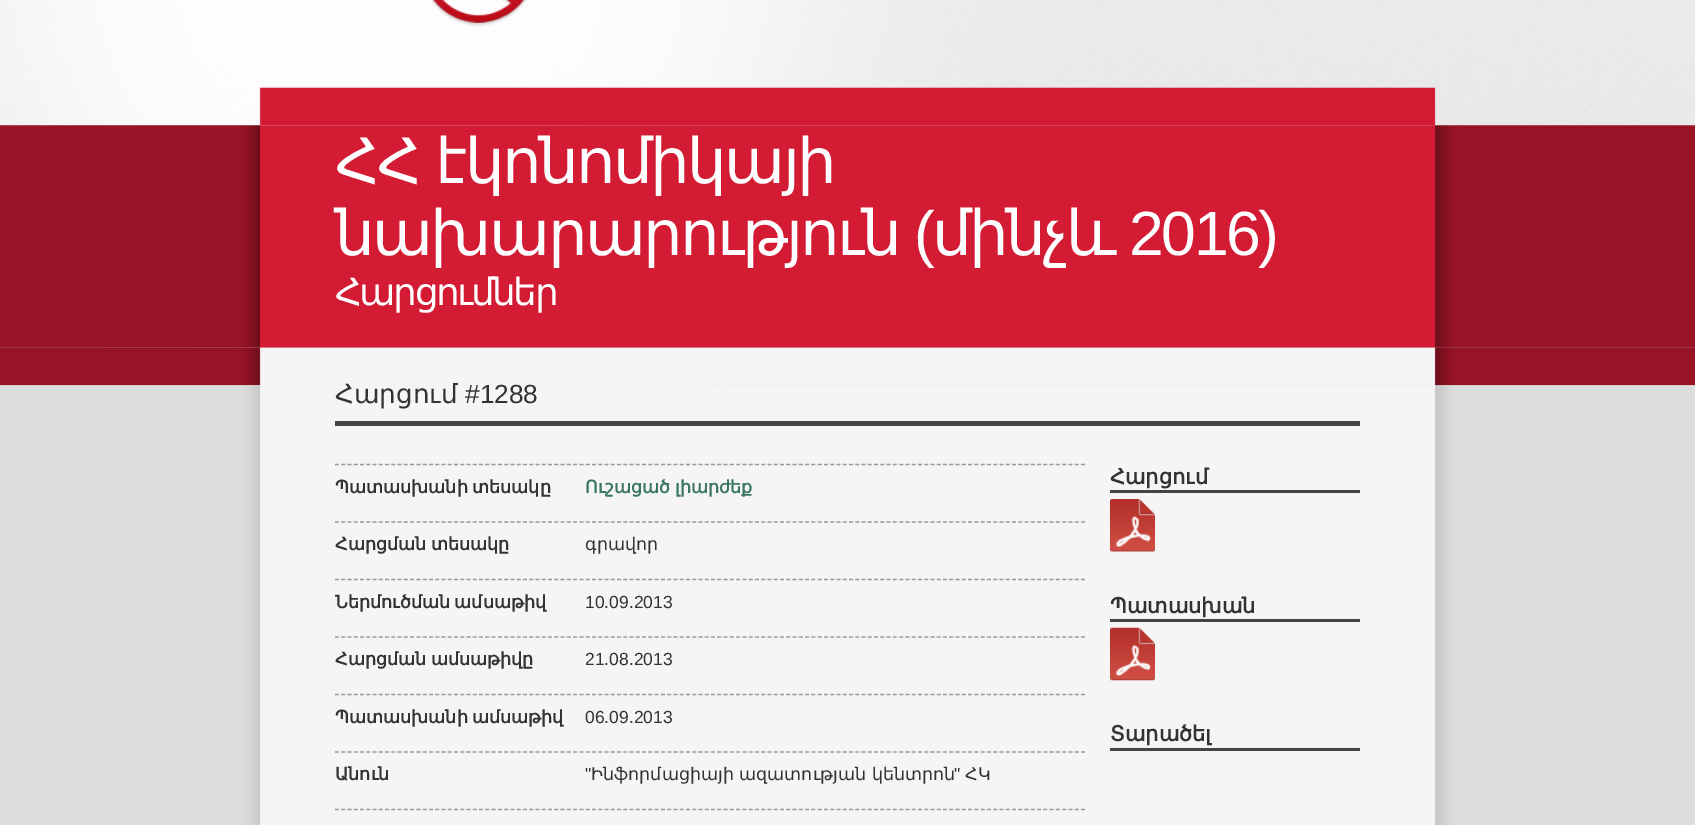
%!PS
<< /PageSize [1695 825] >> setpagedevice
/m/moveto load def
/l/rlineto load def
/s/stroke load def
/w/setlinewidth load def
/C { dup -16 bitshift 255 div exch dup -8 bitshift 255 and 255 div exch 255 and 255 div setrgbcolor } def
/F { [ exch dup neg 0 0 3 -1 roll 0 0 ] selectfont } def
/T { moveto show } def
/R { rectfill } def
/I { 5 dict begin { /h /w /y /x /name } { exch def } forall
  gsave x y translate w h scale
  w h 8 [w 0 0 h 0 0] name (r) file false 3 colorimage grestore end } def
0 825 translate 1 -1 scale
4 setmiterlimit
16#FFFFFF C
0 0 1695 825 R
(1.rgb) 0 0 1695 386 I
(2.rgb) 0 0 1436 386 I
(3.rgb) 259 87 1177 39 I
(4.rgb) 0 125 1695 223 I
/DejaVuSans-Regular 62.5 F
335 183 m -2 0 32 -2.5 0 (ՀՀ էկոնոմիկայի) awidthshow
335 255 m -2.5 0 (նախարարություն) ashow
/LiberationSans-Regular 62.5 F
914 255 m -2.5 0 (\() ashow
/DejaVuSans-Regular 62.5 F
932 255 m -2.5 0 (մինչև) ashow
/LiberationSans-Regular 62.5 F
1129 255 m -2.5 0 (2016\)) ashow
/DejaVuSans-Regular 37.5 F
335 305 m -2.5 0 (Հարցումներ) ashow
(5.rgb) 0 347 1695 39 I
(6.rgb) 0 385 1695 440 I
16#444444 C
335 421 1025 5 R
/DejaVuSans-Regular 26.25 F
16#333333 C
(Հարցում) 335 403 T
/LiberationSans-Regular 26.25 F
(#1288) 465 403 T
16#999999 C
1.2 w
[3.75 2.52] 0 setdash
335 464.5 m 750 0 l s
/DejaVuSans-Bold 17.5 F
16#333333 C
335 493 m -1 0 32 (Պատասխանի տեսակը) widthshow
16#3A7662 C
585 493 m -1 0 32 (Ուշացած լիարժեք) widthshow
16#999999 C
335 522 m 750 0 l s
16#333333 C
335 550 m -1 0 32 (Հարցման տեսակը) widthshow
/DejaVuSans-Regular 17.5 F
(գրավոր) 585 550 T
16#999999 C
335 579.5 m 750 0 l s
/DejaVuSans-Bold 17.5 F
16#333333 C
335 608 m -1 0 32 (Ներմուծման ամսաթիվ) widthshow
/LiberationSans-Regular 17.5 F
(10.09.2013) 585 608 T
16#999999 C
335 637 m 750 0 l s
/DejaVuSans-Bold 17.5 F
16#333333 C
335 665 m -1 0 32 (Հարցման ամսաթիվը) widthshow
/LiberationSans-Regular 17.5 F
(21.08.2013) 585 665 T
16#999999 C
335 694.5 m 750 0 l s
/DejaVuSans-Bold 17.5 F
16#333333 C
335 723 m -1 0 32 (Պատասխանի ամսաթիվ) widthshow
/LiberationSans-Regular 17.5 F
(06.09.2013) 585 723 T
16#999999 C
335 752 m 750 0 l s
/DejaVuSans-Bold 17.5 F
16#333333 C
(Անուն) 335 780 T
/LiberationSans-Regular 17.5 F
(") 585 780 T
/DejaVuSans-Regular 17.5 F
(Ինֆորմացիայի ազատության կենտրոն) 591 780 T
/LiberationSans-Regular 17.5 F
(") 954 780 T
/DejaVuSans-Regular 17.5 F
(ՀԿ) 965 780 T
16#999999 C
335 809.5 m 750 0 l s
16#444444 C
1110 490 250 3 R
/DejaVuSans-Bold 21 F
16#333333 C
(Հարցում) 1110 484 T
(7.rgb) 1110 499 45 53 I
16#444444 C
1110 619 250 3 R
16#333333 C
(Պատասխան) 1110 613 T
(8.rgb) 1110 627 45 54 I
16#444444 C
1110 748 250 3 R
16#333333 C
(Տարածել) 1110 741 T
showpage
